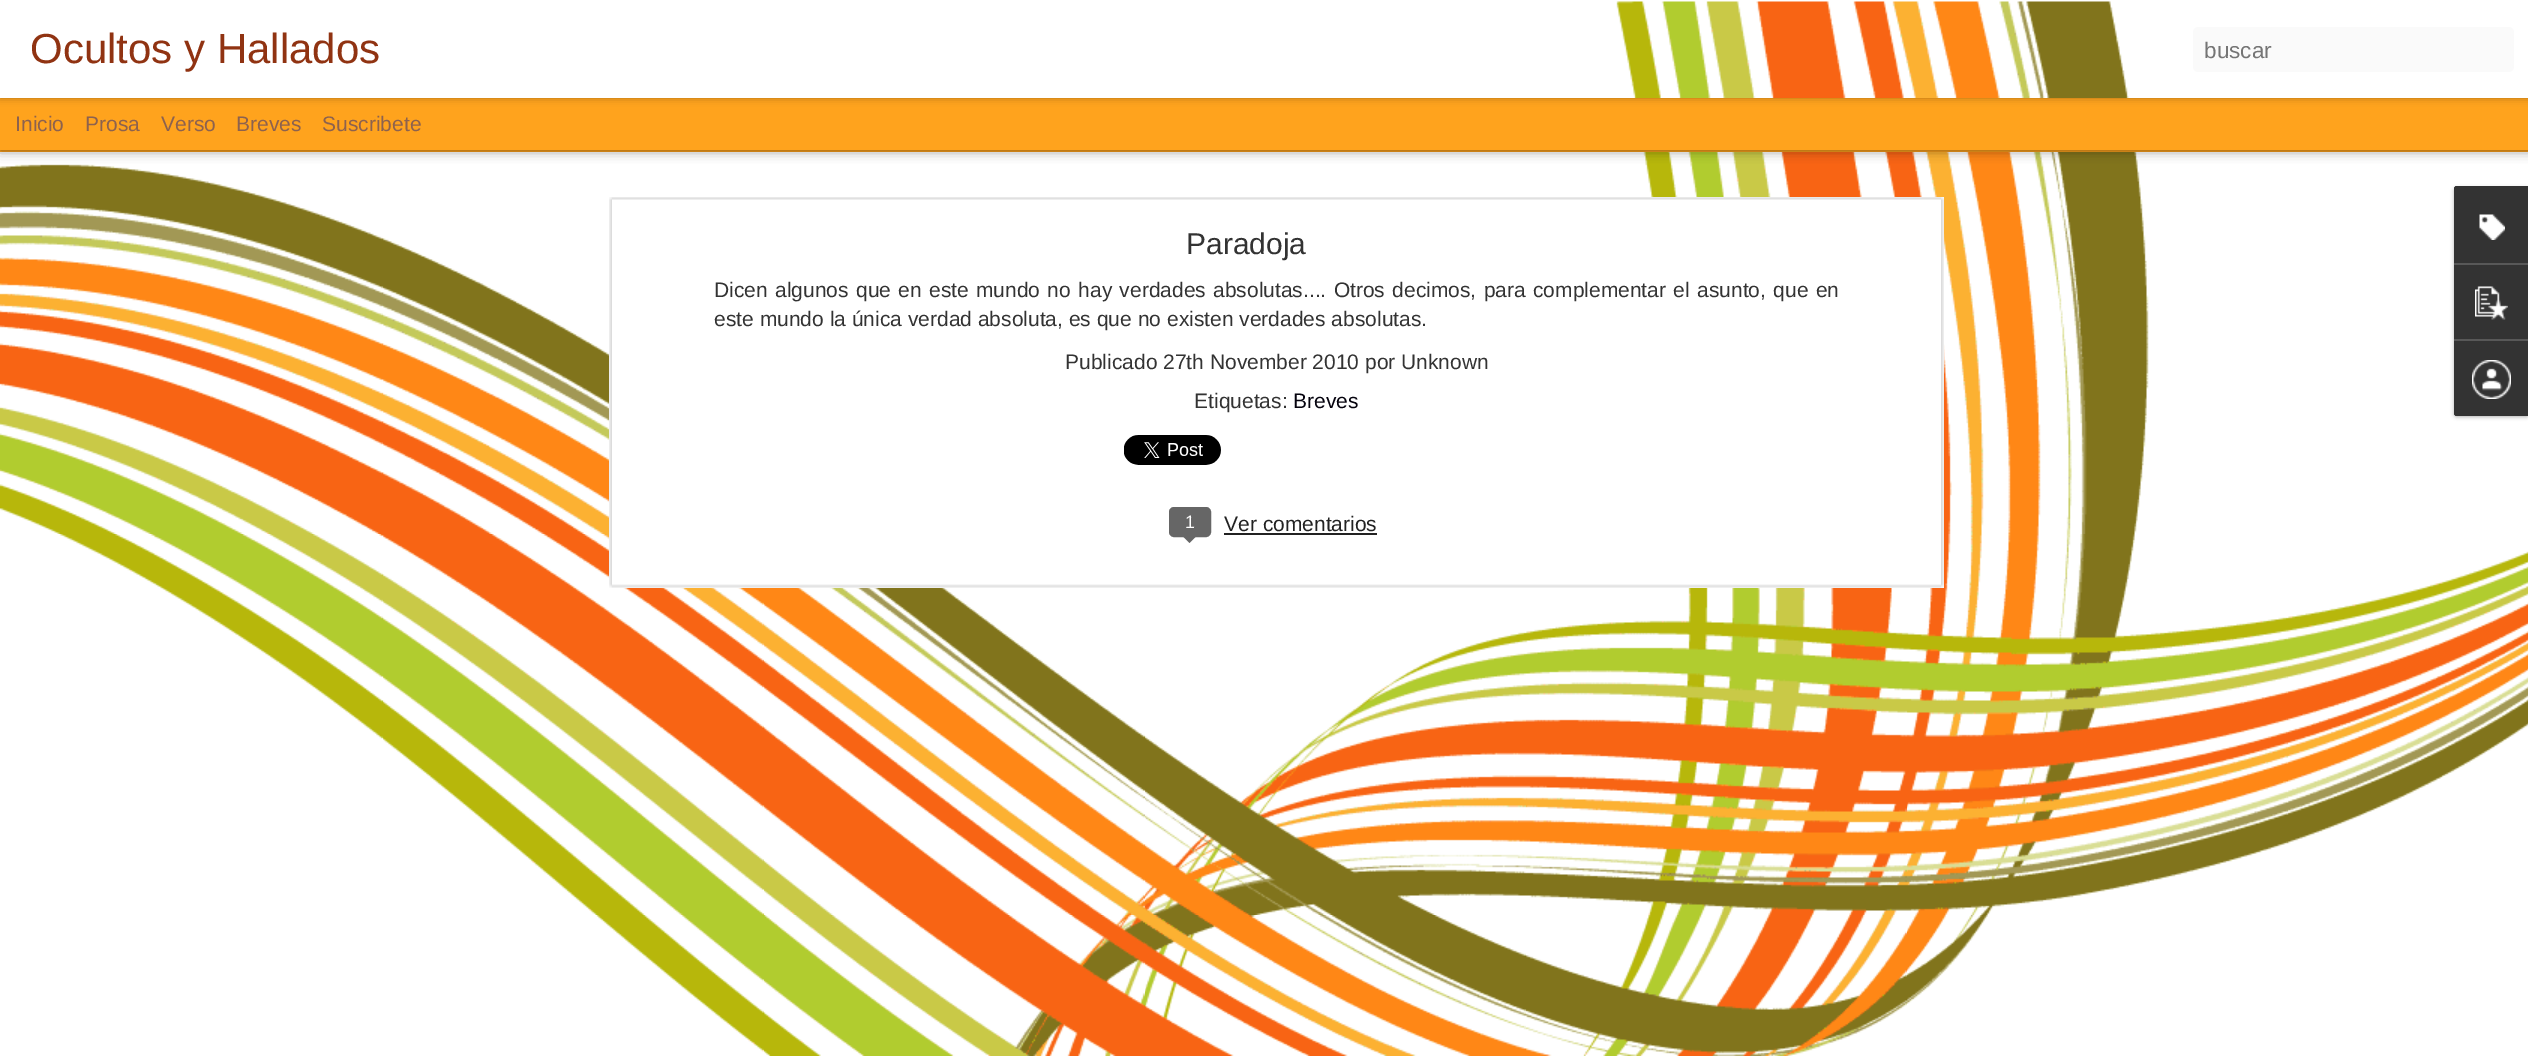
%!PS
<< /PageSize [2528 1056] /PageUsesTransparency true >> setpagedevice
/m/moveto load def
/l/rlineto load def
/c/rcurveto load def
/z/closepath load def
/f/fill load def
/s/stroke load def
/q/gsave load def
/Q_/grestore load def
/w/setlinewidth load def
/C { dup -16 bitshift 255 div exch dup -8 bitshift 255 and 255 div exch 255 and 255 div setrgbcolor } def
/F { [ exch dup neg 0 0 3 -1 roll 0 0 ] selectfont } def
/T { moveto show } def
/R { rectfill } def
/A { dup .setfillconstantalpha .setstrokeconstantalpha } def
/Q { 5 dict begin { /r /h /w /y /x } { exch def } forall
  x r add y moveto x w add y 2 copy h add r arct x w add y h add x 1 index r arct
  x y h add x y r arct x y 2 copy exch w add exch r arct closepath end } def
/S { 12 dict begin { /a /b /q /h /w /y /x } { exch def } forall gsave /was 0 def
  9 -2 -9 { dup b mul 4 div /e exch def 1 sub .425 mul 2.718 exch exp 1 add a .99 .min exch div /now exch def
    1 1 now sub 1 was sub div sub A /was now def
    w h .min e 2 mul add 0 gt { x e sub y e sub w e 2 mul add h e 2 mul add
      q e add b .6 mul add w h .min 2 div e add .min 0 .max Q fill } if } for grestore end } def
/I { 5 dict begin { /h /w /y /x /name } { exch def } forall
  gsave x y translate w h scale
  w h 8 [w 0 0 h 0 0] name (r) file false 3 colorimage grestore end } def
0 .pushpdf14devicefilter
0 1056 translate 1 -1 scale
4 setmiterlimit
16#FFA31D C
0 0 2528 1056 R
(2.rgb) 0 152 2528 904 I
16#000000 C
0 98 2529 52 0 6 .5 S
16#FFA31D C
0 98 2528 52 R
16#000000 C
0 0 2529 98 0 4 .3 S
(1.rgb) 0 0 2528 98 I
/LiberationSans-Regular 42 F
16#903312 C
(Ocultos y Hallados) 30 63 T
16#FAFAFA C
2193 27 321 45 5 Q f
/LiberationSans-Regular 22.5 F
16#757575 C
(buscar) 2204 58 T
/LiberationSans-Regular 21 F
16#8D624E C
(Inicio) 15 131 T
(Prosa) 85 131 T
(Verso) 161 131 T
(Breves) 236 131 T
(Suscribete) 322 131 T
16#FFFFFF C
609 197 1335 391 R
(3.rgb) 609 197 1335 391 I
/LiberationSans-Regular 30 F
16#333333 C
(Paradoja) 1186 254 T
/LiberationSans-Regular 21 F
714 297 m 1.5 0 32 (Dicen algunos que en este mundo no hay verdades absolutas.... Otros decimos, para complementar el asunto, que en) widthshow
(este mundo la única verdad absoluta, es que no existen verdades absolutas.) 714 326 T
(Publicado 27th November 2010 por Unknown) 1065 369 T
(Etiquetas:) 1194 408 T
16#05030E C
(Breves) 1293 408 T
(4.rgb) 1124 435 97 30 I
16#666666 C
1170 508 40 28 4 Q q f Q_
2 w
s
/LiberationSans-Regular 18 F
16#FFFFFF C
(1) 1185 528 T
16#666666 C
1182 535.5 m 15 0 l -7.5 7.5 l z f
/LiberationSans-Regular 21 F
16#222222 C
(Ver comentarios) 1224 531 T
1224 533 153 2 R
16#000000 C
2454 188 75 229 3 2 .3 S
16#333333 C
2457 186 m 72 0 l 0 230 l -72 0 l -1.5 0 -3 -1.5 -3 -3 c 0 -224 l 0 -1.5 1.5 -3 3 -3 c z f
2457 186 m 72 0 l 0 77 l -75 0 l 0 -74 l 0 -1.5 1.5 -3 3 -3 c z f
(5.rgb) 2479 214 26 26 I
16#585858 C
2454 263 74 2 R
(6.rgb) 2475 286 33 34 I
16#333333 C
2454 339 m 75 0 l 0 77 l -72 0 l -1.5 0 -3 -1.5 -3 -3 c z f
16#585858 C
2454 339 74 2 R
(7.rgb) 2472 360 39 39 I
.poppdf14devicefilter showpage
